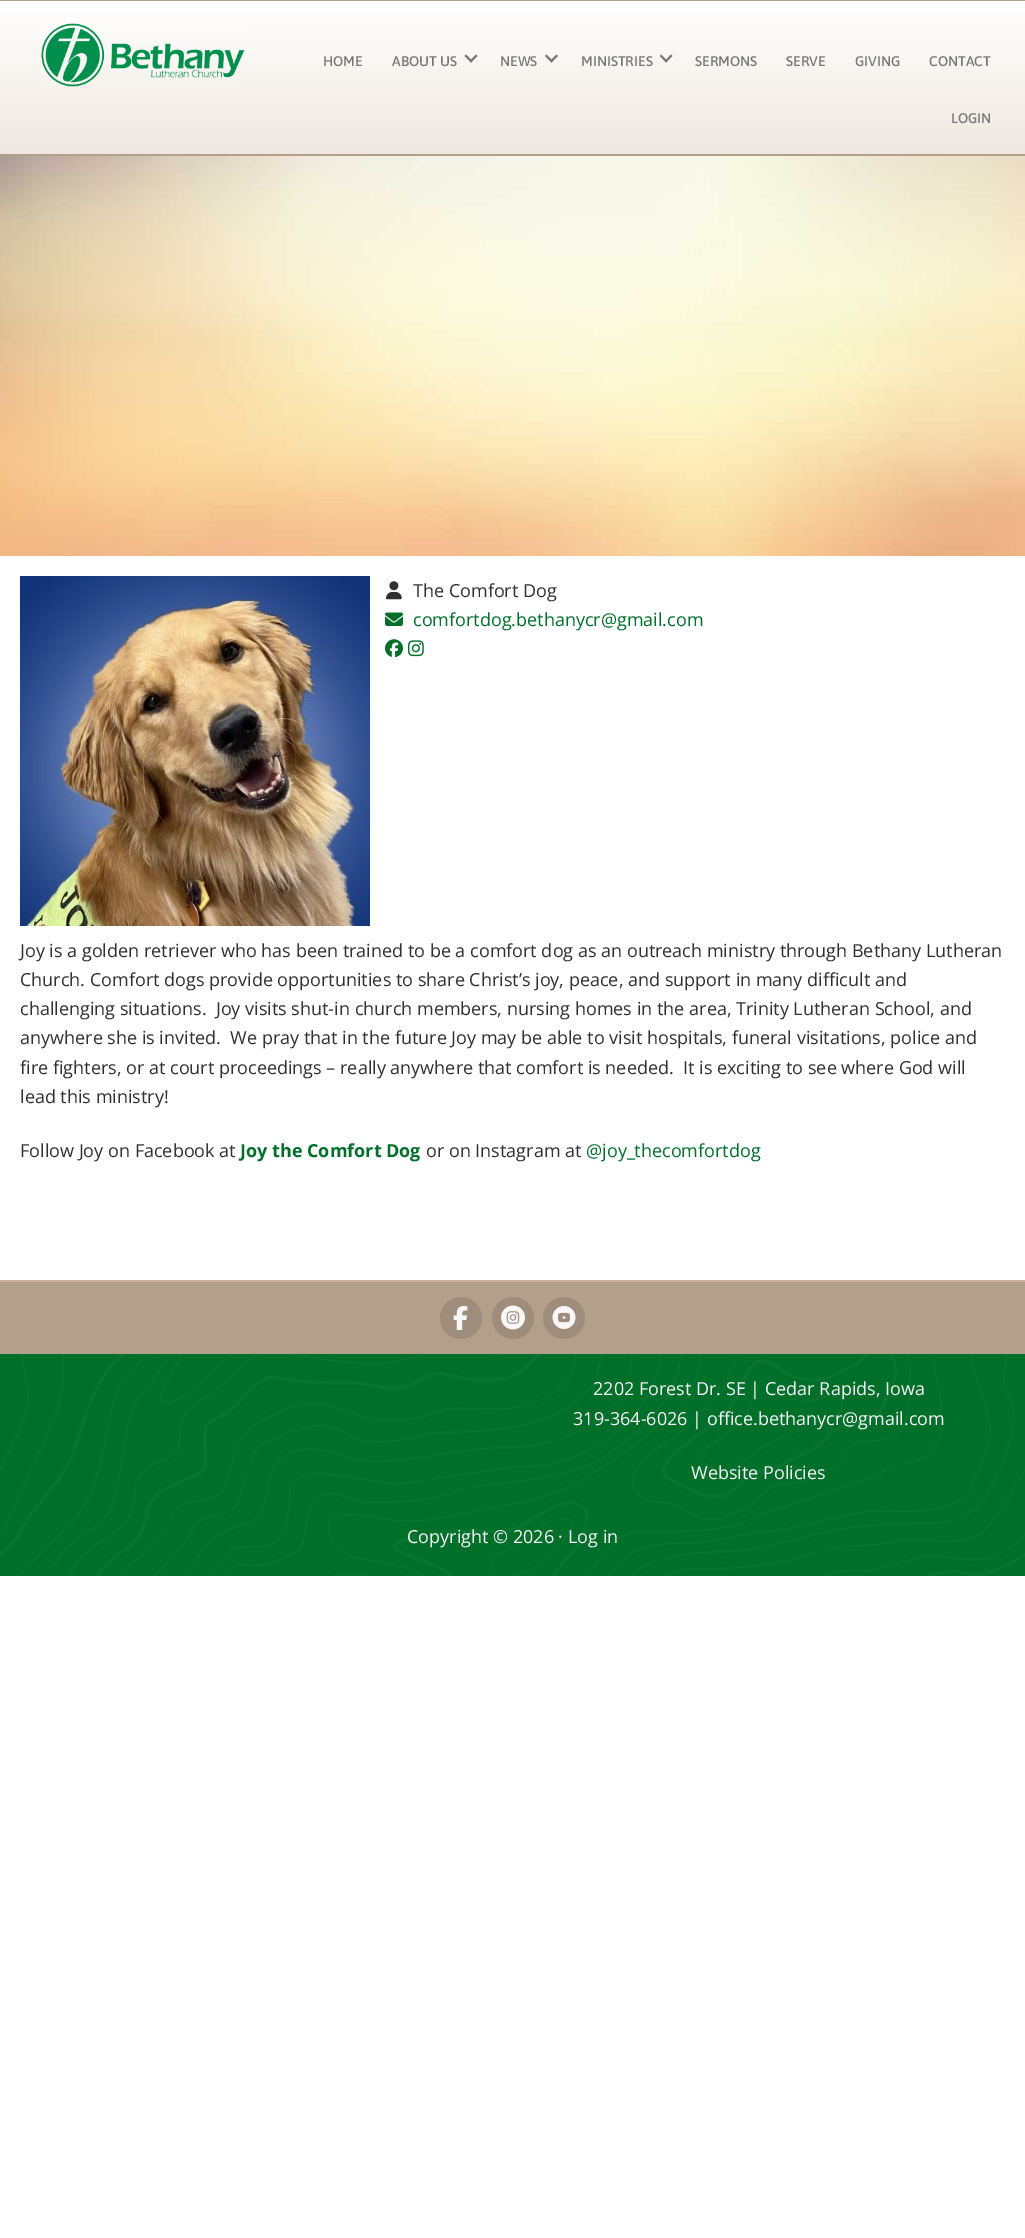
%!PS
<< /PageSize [1025 2238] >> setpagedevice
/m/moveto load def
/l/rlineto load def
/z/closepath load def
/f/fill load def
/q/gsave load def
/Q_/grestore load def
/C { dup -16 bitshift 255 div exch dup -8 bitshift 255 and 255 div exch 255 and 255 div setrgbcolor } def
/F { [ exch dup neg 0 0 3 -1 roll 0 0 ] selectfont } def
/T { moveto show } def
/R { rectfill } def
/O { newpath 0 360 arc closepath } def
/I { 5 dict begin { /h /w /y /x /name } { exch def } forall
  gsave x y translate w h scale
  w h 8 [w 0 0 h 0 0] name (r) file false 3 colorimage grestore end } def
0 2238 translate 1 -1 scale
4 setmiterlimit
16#FFFFFF C
0 0 1025 2238 R
q 0 14 m 1025 0 l 0 140 l -1025 0 l z clip newpath
<< /ShadingType 2 /ColorSpace /DeviceRGB /Coords [513 154 513 1] /Extend [true true] /Function << /FunctionType 2 /Domain [0 1] /C0 [.937 .91 .882] /C1 [1 1 1] /N 1 >> >> shfill Q_
16#B2A08A C
0 0 1025 1 R
0 154 1025 2 R
(1.rgb) 41 23 204 64 I
/Asap-Medium 14 F
16#767676 C
(HOME) 323 66 T
(ABOUT US) 392 66 T
476 54.5 m 1.5 1.5 l -6.5 6.5 l -1.5 -1.5 l z f
466 54.5 m 6.5 6.5 l -1.5 1.5 l -6.5 -6.5 l z f
(NEWS) 500 66 T
556.5 54.5 m 1.5 1.5 l -6.5 6.5 l -1.5 -1.5 l z f
546.5 54.5 m 6.5 6.5 l -1.5 1.5 l -6.5 -6.5 l z f
(MINISTRIES) 581 66 T
671 54.5 m 1.5 1.5 l -6.5 6.5 l -1 -1.5 l z f
661 54.5 m 6.5 6.5 l -1.5 1.5 l -6 -6.5 l z f
(SERMONS) 695 66 T
(SERVE) 786 66 T
(GIVING) 855 66 T
(CONTACT) 929 66 T
(LOGIN) 951 123 T
(2.rgb) 0 156 1025 400 I
(3.rgb) 20 576 350 350 I
(4.rgb) 386 581 16 19 I
(5.rgb) 385 612 18 14 I
/OpenSans-Regular 18 F
16#303030 C
(The Comfort Dog) 413 597 T
16#006F2A C
(comfortdog.bethanycr@gmail.com) 413 626 T
(6.rgb) 385 639 18 19 I
(7.rgb) 408 640 16 17 I
16#303030 C
(Joy is a golden retriever who has been trained to be a comfort dog as an outreach ministry through Bethany Lutheran) 20 957 T
(Church. Comfort dogs provide opportunities to share Christ’s joy, peace, and support in many difficult and) 20 986 T
(challenging situations.  Joy visits shut-in church members, nursing homes in the area, Trinity Lutheran School, and) 20 1015 T
(anywhere she is invited.  We pray that in the future Joy may be able to visit hospitals, funeral visitations, police and) 20 1044 T
(fire fighters, or at court proceedings – really anywhere that comfort is needed.  It is exciting to see where God will) 20 1074 T
(lead this ministry!) 20 1103 T
(Follow Joy on Facebook at) 20 1157 T
/OpenSans-Bold 18 F
16#006F2A C
(Joy the Comfort Dog) 240 1157 T
/OpenSans-Regular 18 F
16#303030 C
(or on Instagram at) 426 1157 T
16#006F2A C
(@joy_thecomfortdog) 586 1157 T
16#B2A08A C
0 1282 1025 72 R
16#C7B199 C
0 1280 1025 2 R
16#9E8D7B C
461 1318 21 O f
(8.rgb) 453 1306 15 24 I
513 1318 21 O f
(9.rgb) 501 1305 24 25 I
564 1318 21 O f
(10.rgb) 552 1306 24 23 I
16#006F2A C
0 1354 1025 222 R
(11.rgb) 0 1354 1025 222 I
16#F7F7F7 C
(2202 Forest Dr. SE | Cedar Rapids, Iowa) 593 1395 T
(319-364-6026 | office.bethanycr@gmail.com) 573 1425 T
(Website Policies) 691 1479 T
(Copyright © 2026 · Log in) 407 1543 T
showpage
